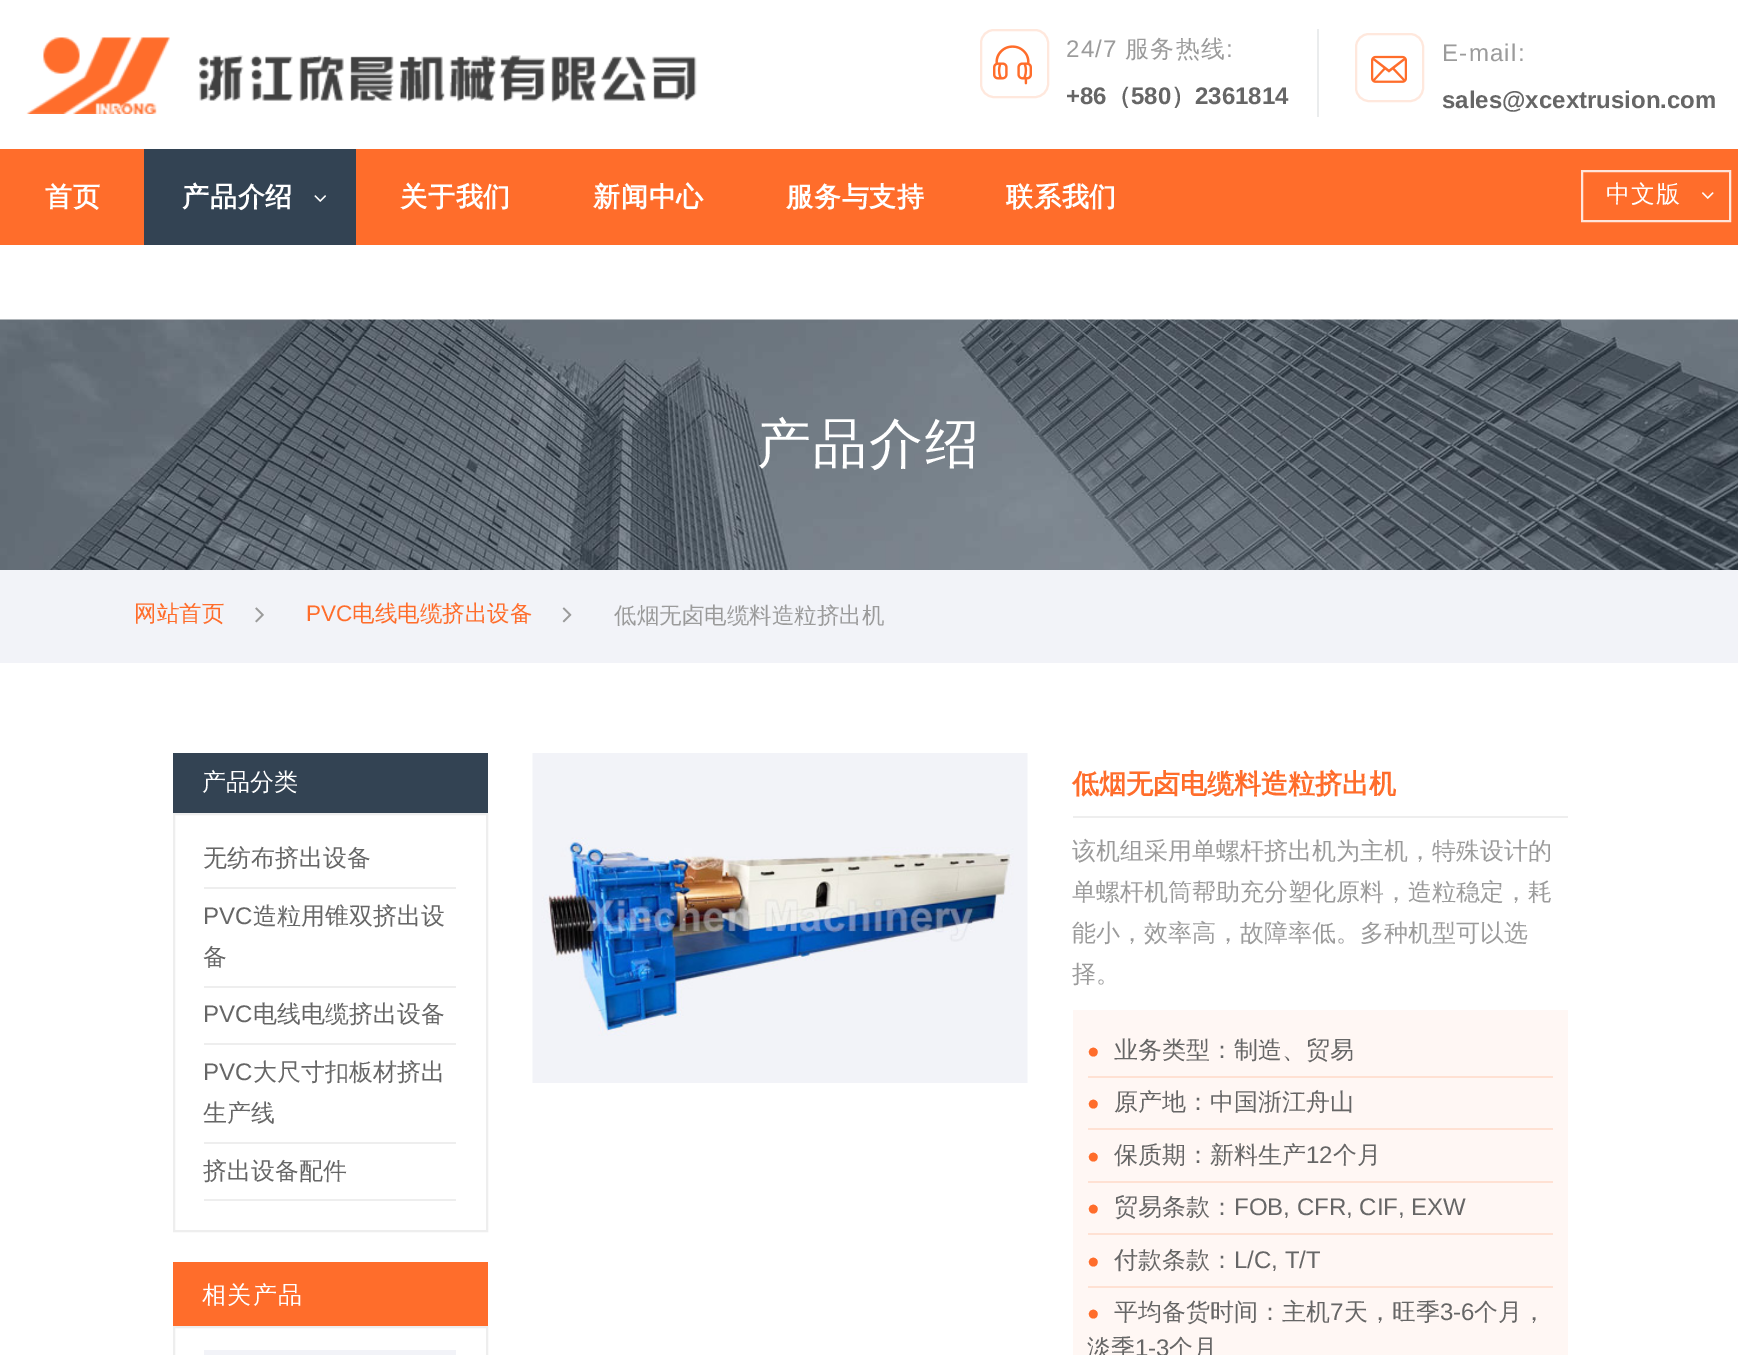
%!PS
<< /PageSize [1738 1355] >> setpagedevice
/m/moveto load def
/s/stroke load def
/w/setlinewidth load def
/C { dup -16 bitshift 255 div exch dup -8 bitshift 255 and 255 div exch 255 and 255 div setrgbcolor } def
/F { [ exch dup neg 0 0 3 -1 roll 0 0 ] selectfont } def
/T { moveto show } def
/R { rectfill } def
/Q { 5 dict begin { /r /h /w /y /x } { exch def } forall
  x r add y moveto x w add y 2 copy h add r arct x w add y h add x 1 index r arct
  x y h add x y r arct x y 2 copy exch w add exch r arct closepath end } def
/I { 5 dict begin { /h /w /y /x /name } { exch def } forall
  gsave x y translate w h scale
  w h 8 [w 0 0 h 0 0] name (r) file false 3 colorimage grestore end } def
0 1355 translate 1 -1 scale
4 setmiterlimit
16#FFFFFF C
0 0 1738 1355 R
(1.rgb) 26 37 671 77 I
16#FFE8DD C
2 w
981 30 67 67 13 Q s
(2.rgb) 993 45 39 40 I
/LiberationSans-Regular 24 F
16#9B9B9B C
1066 57 m 1.25 0 (24/7) ashow
/WenQuanYiZenHei-Medium 24 F
1125 57 m 1.25 0 (服务热线) ashow
/LiberationSans-Regular 24 F
1226 57 m 1.25 0 (:) ashow
/LiberationSans-Bold 24 F
16#666666 C
(+86) 1066 104 T
/WenQuanYiZenHei-Bold 24 F
(（) 1107 104 T
/LiberationSans-Bold 24 F
(580) 1131 104 T
/WenQuanYiZenHei-Bold 24 F
(）) 1171 104 T
/LiberationSans-Bold 24 F
(2361814) 1195 104 T
16#EAECED C
1317 29 2 88 R
16#FFE8DD C
1356 34 67 67 13 Q s
(3.rgb) 1371 55 36 28 I
/LiberationSans-Regular 24 F
16#9B9B9B C
1442 61 m 1.25 0 (E-mail:) ashow
/LiberationSans-Bold 24 F
16#666666 C
(sales@xcextrusion.com) 1442 108 T
16#FF6D2B C
0 149 1738 96 R
/WenQuanYiZenHei-Bold 27 F
16#FFFFFF C
45 206 m .75 0 (首页) ashow
16#334353 C
144 149 212 96 R
16#FFFFFF C
182 206 m .75 0 (产品介绍) ashow
(4.rgb) 314 195 12 7 I
400 206 m .75 0 (关于我们) ashow
593 206 m .75 0 (新闻中心) ashow
786 206 m .75 0 (服务与支持) ashow
1006 206 m .75 0 (联系我们) ashow
16#FFE5DA C
1582 171 148 50 rectstroke
/WenQuanYiZenHei-Medium 24 F
16#FFFFFF C
1606 202 m .75 0 (中文版) ashow
(5.rgb) 1702 192 12 7 I
(6.rgb) 0 319 1738 251 I
/WenQuanYiZenHei-Medium 54 F
757 462 m 2 0 (产品介绍) ashow
16#F2F3F8 C
0 570 1738 93 R
/WenQuanYiZenHei-Medium 22.5 F
16#FF6D2B C
(网站首页) 134 621 T
(7.rgb) 255 607 9 16 I
/LiberationSans-Regular 22.5 F
(PVC) 306 621 T
/WenQuanYiZenHei-Medium 22.5 F
(电线电缆挤出设备) 352 621 T
(8.rgb) 562 607 10 16 I
16#9B9B9B C
(低烟无卤电缆料造粒挤出机) 614 623 T
16#334353 C
173 753 315 60 R
/WenQuanYiZenHei-Medium 24 F
16#FFFFFF C
(产品分类) 202 790 T
16#EEEEEE C
174 814 313 417 rectstroke
204 887 252 2 R
16#666666 C
(无纺布挤出设备) 203 866 T
16#EEEEEE C
204 986 252 2 R
/LiberationSans-Regular 24 F
16#666666 C
(PVC) 203 924 T
/WenQuanYiZenHei-Medium 24 F
(造粒用锥双挤出设) 253 924 T
(备) 203 965 T
16#EEEEEE C
204 1043 252 2 R
/LiberationSans-Regular 24 F
16#666666 C
(PVC) 203 1022 T
/WenQuanYiZenHei-Medium 24 F
(电线电缆挤出设备) 253 1022 T
16#EEEEEE C
204 1142 252 2 R
/LiberationSans-Regular 24 F
16#666666 C
(PVC) 203 1080 T
/WenQuanYiZenHei-Medium 24 F
(大尺寸扣板材挤出) 253 1080 T
(生产线) 203 1121 T
16#EEEEEE C
204 1199 252 2 R
16#666666 C
(挤出设备配件) 203 1179 T
16#FF6D2B C
173 1262 315 64 R
16#FFFFFF C
202 1303 m 1.25 0 (相关产品) ashow
16#EEEEEE C
174 1327 313 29 rectstroke
16#F2F3F8 C
204 1350 252 5 R
(9.rgb) 532 753 496 330 I
16#EEEEEE C
1073 816 495 2 R
/WenQuanYiZenHei-Bold 27 F
16#FF6D2B C
(低烟无卤电缆料造粒挤出机) 1072 793 T
/WenQuanYiZenHei-Medium 24 F
16#9B9B9B C
(该机组采用单螺杆挤出机为主机，特殊设计的) 1072 859 T
(单螺杆机筒帮助充分塑化原料，造粒稳定，耗) 1072 900 T
(能小，效率高，故障率低。多种机型可以选) 1072 941 T
(择。) 1072 982 T
16#FFF7F4 C
1073 1010 495 345 R
16#FFE1D3 C
1088 1076 465 2 R
/LiberationSans-Bold 21 F
16#FF6D2B C
(●) 1087 1058 T
/WenQuanYiZenHei-Medium 24 F
16#666666 C
(业务类型：制造、贸易) 1114 1058 T
16#FFE1D3 C
1088 1128 465 2 R
/LiberationSans-Bold 21 F
16#FF6D2B C
(●) 1087 1110 T
/WenQuanYiZenHei-Medium 24 F
16#666666 C
(原产地：中国浙江舟山) 1114 1110 T
16#FFE1D3 C
1088 1181 465 2 R
/LiberationSans-Bold 21 F
16#FF6D2B C
(●) 1087 1163 T
/WenQuanYiZenHei-Medium 24 F
16#666666 C
(保质期：新料生产) 1114 1163 T
/LiberationSans-Regular 24 F
(12) 1306 1163 T
/WenQuanYiZenHei-Medium 24 F
(个月) 1333 1163 T
16#FFE1D3 C
1088 1233 465 2 R
/LiberationSans-Bold 21 F
16#FF6D2B C
(●) 1087 1215 T
/WenQuanYiZenHei-Medium 24 F
16#666666 C
(贸易条款：) 1114 1215 T
/LiberationSans-Regular 24 F
(FOB, CFR, CIF, EXW) 1234 1215 T
16#FFE1D3 C
1088 1286 465 2 R
/LiberationSans-Bold 21 F
16#FF6D2B C
(●) 1087 1268 T
/WenQuanYiZenHei-Medium 24 F
16#666666 C
(付款条款：) 1114 1268 T
/LiberationSans-Regular 24 F
(L/C, T/T) 1234 1268 T
/LiberationSans-Bold 21 F
16#FF6D2B C
(●) 1087 1320 T
/WenQuanYiZenHei-Medium 24 F
16#666666 C
(平均备货时间：主机) 1114 1320 T
/LiberationSans-Regular 24 F
(7) 1330 1320 T
/WenQuanYiZenHei-Medium 24 F
(天，旺季) 1344 1320 T
/LiberationSans-Regular 24 F
(3-6) 1440 1320 T
/WenQuanYiZenHei-Medium 24 F
(个月，) 1474 1320 T
(淡季) 1087 1356 T
/LiberationSans-Regular 24 F
(1-3) 1135 1356 T
/WenQuanYiZenHei-Medium 24 F
(个月) 1169 1356 T
showpage
